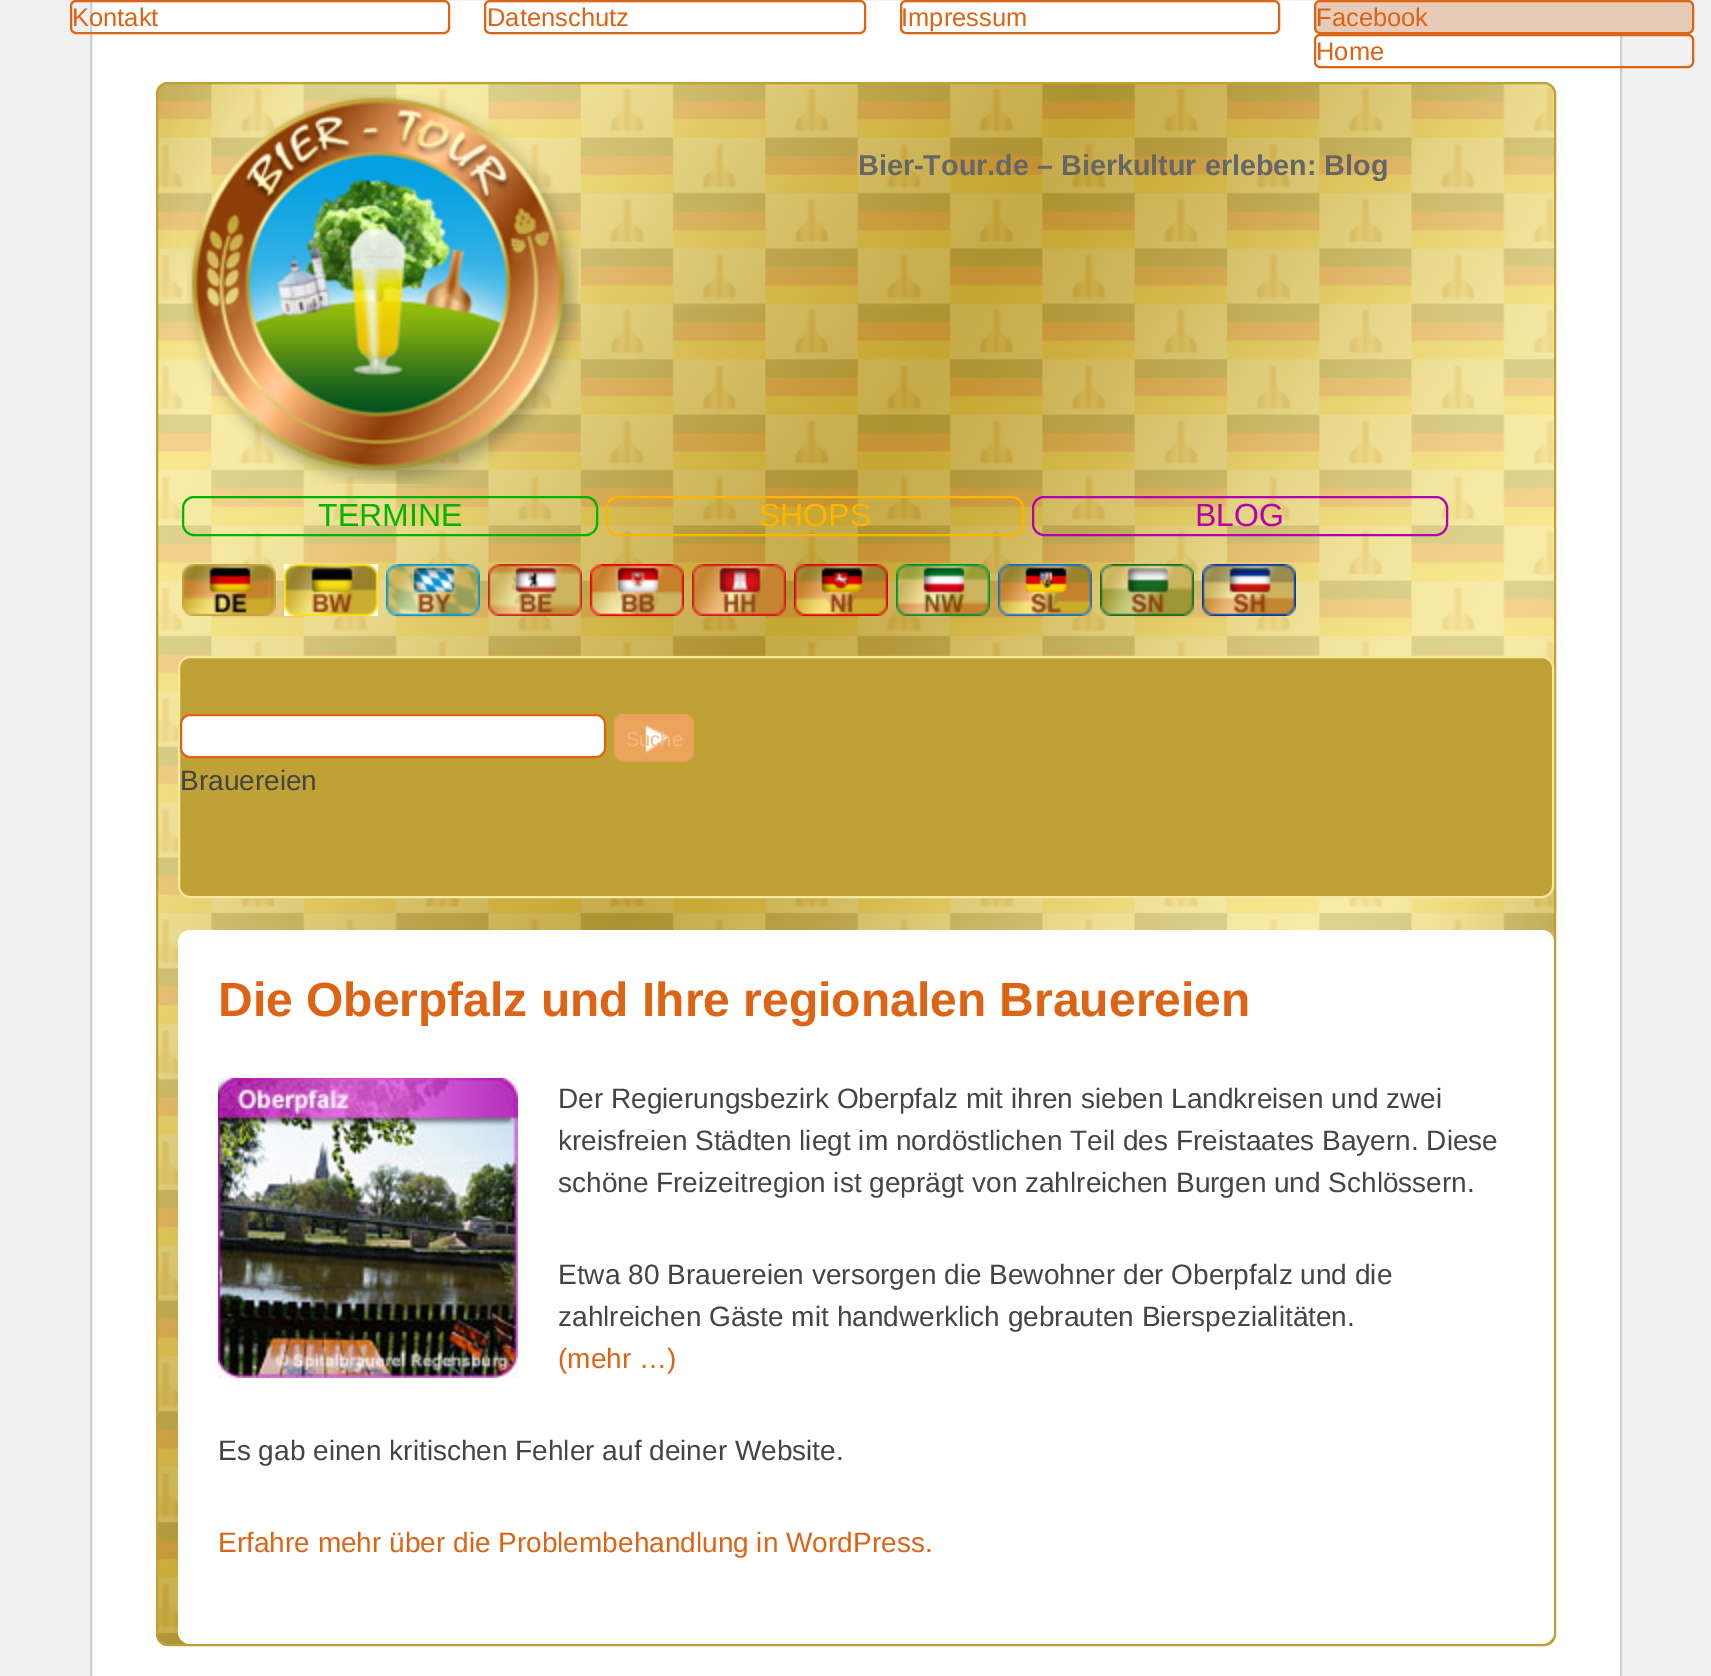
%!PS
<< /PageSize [1711 1676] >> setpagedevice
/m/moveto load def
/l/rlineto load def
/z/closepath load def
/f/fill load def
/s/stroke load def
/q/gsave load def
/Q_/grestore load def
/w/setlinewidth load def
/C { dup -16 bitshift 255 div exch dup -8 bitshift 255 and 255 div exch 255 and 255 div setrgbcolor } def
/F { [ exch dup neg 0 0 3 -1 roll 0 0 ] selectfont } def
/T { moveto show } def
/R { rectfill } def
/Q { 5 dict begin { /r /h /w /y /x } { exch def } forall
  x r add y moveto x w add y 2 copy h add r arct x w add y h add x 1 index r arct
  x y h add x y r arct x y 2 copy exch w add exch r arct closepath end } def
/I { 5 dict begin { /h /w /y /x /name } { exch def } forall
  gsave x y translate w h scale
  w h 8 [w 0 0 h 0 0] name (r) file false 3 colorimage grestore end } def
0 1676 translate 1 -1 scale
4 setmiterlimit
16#F1F1F1 C
0 0 1711 1676 R
16#FFFFFF C
91 -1 m 1530 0 l 0 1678 l -1530 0 l z q f Q_
16#CCD0D4 C
2 w
s
(1.rgb) 156 82 1400 1564 I
16#BFA136 C
157 83 1398 1562 11 Q s
16#DC6414 C
71 1 378 32 5 Q s
/LiberationSans-Regular 25.5 F
(Kontakt) 72 26 T
485 1 380 32 5 Q s
(Datenschutz) 487 26 T
901 1 378 32 5 Q s
(Impressum) 901 26 T
16#E5CBB8 C
1315 1 378 32 5 Q q f Q_
16#DC6414 C
s
(Facebook) 1316 26 T
1315 35 378 32 5 Q s
(Home) 1316 60 T
(2.rgb) 186 94 392 390 I
/LiberationSans-Bold 28.75 F
16#666666 C
(Bier-Tour.de – Bierkultur erleben: Blog) 858 175 T
16#00B400 C
183 497 414 38 11 Q s
/LiberationSans-Regular 32 F
(TERMINE) 318 526 T
16#FFB400 C
607 497 416 38 11 Q s
(SHOPS) 759 526 T
16#B400B4 C
1033 497 414 38 11 Q s
(BLOG) 1195 526 T
(3.rgb) 182 564 94 52 I
(4.rgb) 284 564 94 52 I
(5.rgb) 386 564 94 52 I
(6.rgb) 488 564 94 52 I
(7.rgb) 590 564 94 52 I
(8.rgb) 692 564 94 52 I
(9.rgb) 794 564 94 52 I
(10.rgb) 896 564 94 52 I
(11.rgb) 998 564 94 52 I
(12.rgb) 1100 564 94 52 I
(13.rgb) 1202 564 94 52 I
16#BFA136 C
179 657 1374 240 11 Q q f Q_
16#F6E99D C
s
16#FFFFFF C
181 715 424 42 9 Q q f Q_
16#DC6414 C
s
(14.rgb) 614 714 80 48 I
/LiberationSans-Regular 20 F
16#F1BB85 C
(Suche) 626 746 T
/LiberationSans-Regular 28 F
16#444444 C
(Brauereien) 180 790 T
16#FFFFFF C
178 930 1376 714 12 Q f
/LiberationSans-Bold 48 F
16#DC6414 C
(Die Oberpfalz und Ihre regionalen Brauereien) 218 1016 T
(15.rgb) 218 1078 300 300 I
/LiberationSans-Regular 28 F
16#444444 C
(Der Regierungsbezirk Oberpfalz mit ihren sieben Landkreisen und zwei) 558 1108 T
(kreisfreien Städten liegt im nordöstlichen Teil des Freistaates Bayern. Diese) 558 1150 T
(schöne Freizeitregion ist geprägt von zahlreichen Burgen und Schlössern.) 558 1192 T
(Etwa 80 Brauereien versorgen die Bewohner der Oberpfalz und die) 558 1284 T
(zahlreichen Gäste mit handwerklich gebrauten Bierspezialitäten.) 558 1326 T
16#DC6414 C
(\(mehr …\)) 558 1368 T
16#444444 C
(Es gab einen kritischen Fehler auf deiner Website.) 218 1460 T
16#DC6414 C
(Erfahre mehr über die Problembehandlung in WordPress.) 218 1552 T
showpage
